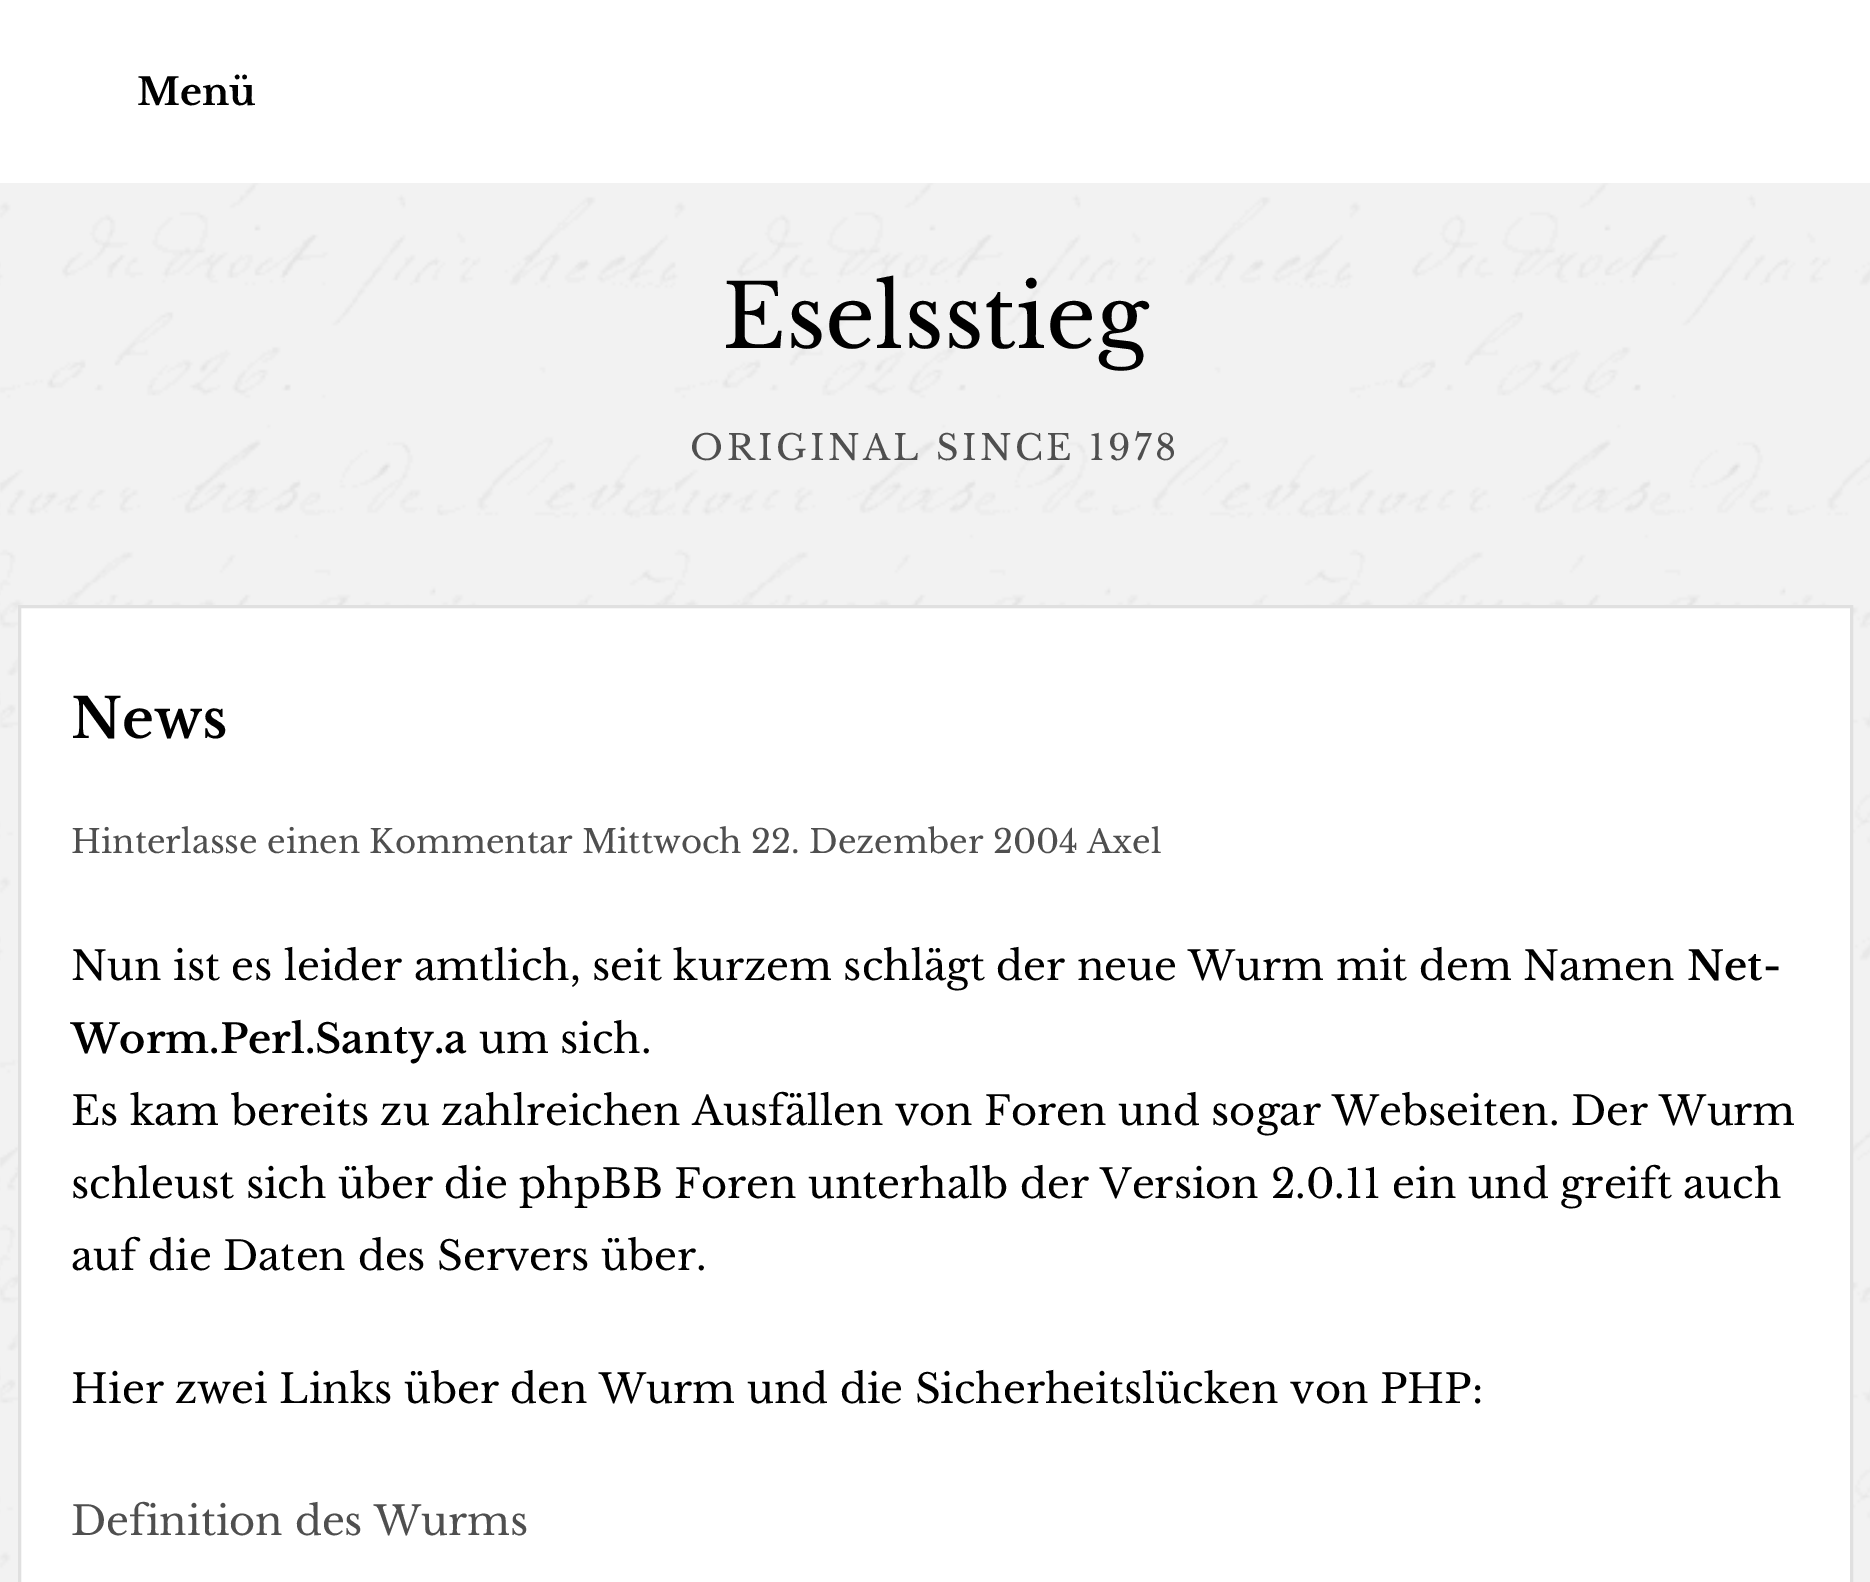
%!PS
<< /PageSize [1870 1582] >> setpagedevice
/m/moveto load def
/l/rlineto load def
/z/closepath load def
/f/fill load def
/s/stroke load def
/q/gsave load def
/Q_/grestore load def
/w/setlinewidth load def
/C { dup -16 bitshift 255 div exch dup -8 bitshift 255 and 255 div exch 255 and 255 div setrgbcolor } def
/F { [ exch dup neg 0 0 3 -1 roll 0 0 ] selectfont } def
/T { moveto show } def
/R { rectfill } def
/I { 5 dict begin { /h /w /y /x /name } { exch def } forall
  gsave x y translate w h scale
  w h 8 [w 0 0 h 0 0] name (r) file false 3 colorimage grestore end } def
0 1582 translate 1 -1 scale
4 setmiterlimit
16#F6F6F6 C
0 0 1870 1582 R
(1.rgb) 0 183 1870 1399 I
16#FFFFFF C
0 0 1870 183 R
/LibreBaskerville-Bold 37.5 F
16#000000 C
(Menü) 137 105 T
/LibreBaskerville-Regular 87.5 F
(Eselsstieg) 722 348 T
/LibreBaskerville-Regular 35 F
16#4F4F4F C
690 460 m 3.5 0 (ORIGINAL SINCE 1978) ashow
16#FFFFFF C
19.5 606.5 m 1832 0 l 0 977 l -1832 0 l z q f Q_
16#E0E0E0 C
3 w
s
/LibreBaskerville-SemiBold 55 F
16#000000 C
(News) 71 738 T
/LibreBaskerville-Regular 32.5 F
16#4F4F4F C
(Hinterlasse einen Kommentar Mittwoch 22. Dezember 2004 Axel) 71 853 T
/LibreBaskerville-Regular 40 F
16#000000 C
(Nun ist es leider amtlich, seit kurzem schlägt der neue Wurm mit dem Namen) 71 980 T
/LibreBaskerville-SemiBold 40 F
(Net-) 1687 980 T
(Worm.Perl.Santy.a) 71 1053 T
/LibreBaskerville-Regular 40 F
(um sich.) 479 1053 T
(Es kam bereits zu zahlreichen Ausfällen von Foren und sogar Webseiten. Der Wurm) 71 1125 T
(schleust sich über die phpBB Foren unterhalb der Version 2.0.11 ein und greift auch) 71 1198 T
(auf die Daten des Servers über.) 71 1270 T
(Hier zwei Links über den Wurm und die Sicherheitslücken von PHP:) 71 1403 T
16#4F4F4F C
(Definition des Wurms) 71 1535 T
showpage
